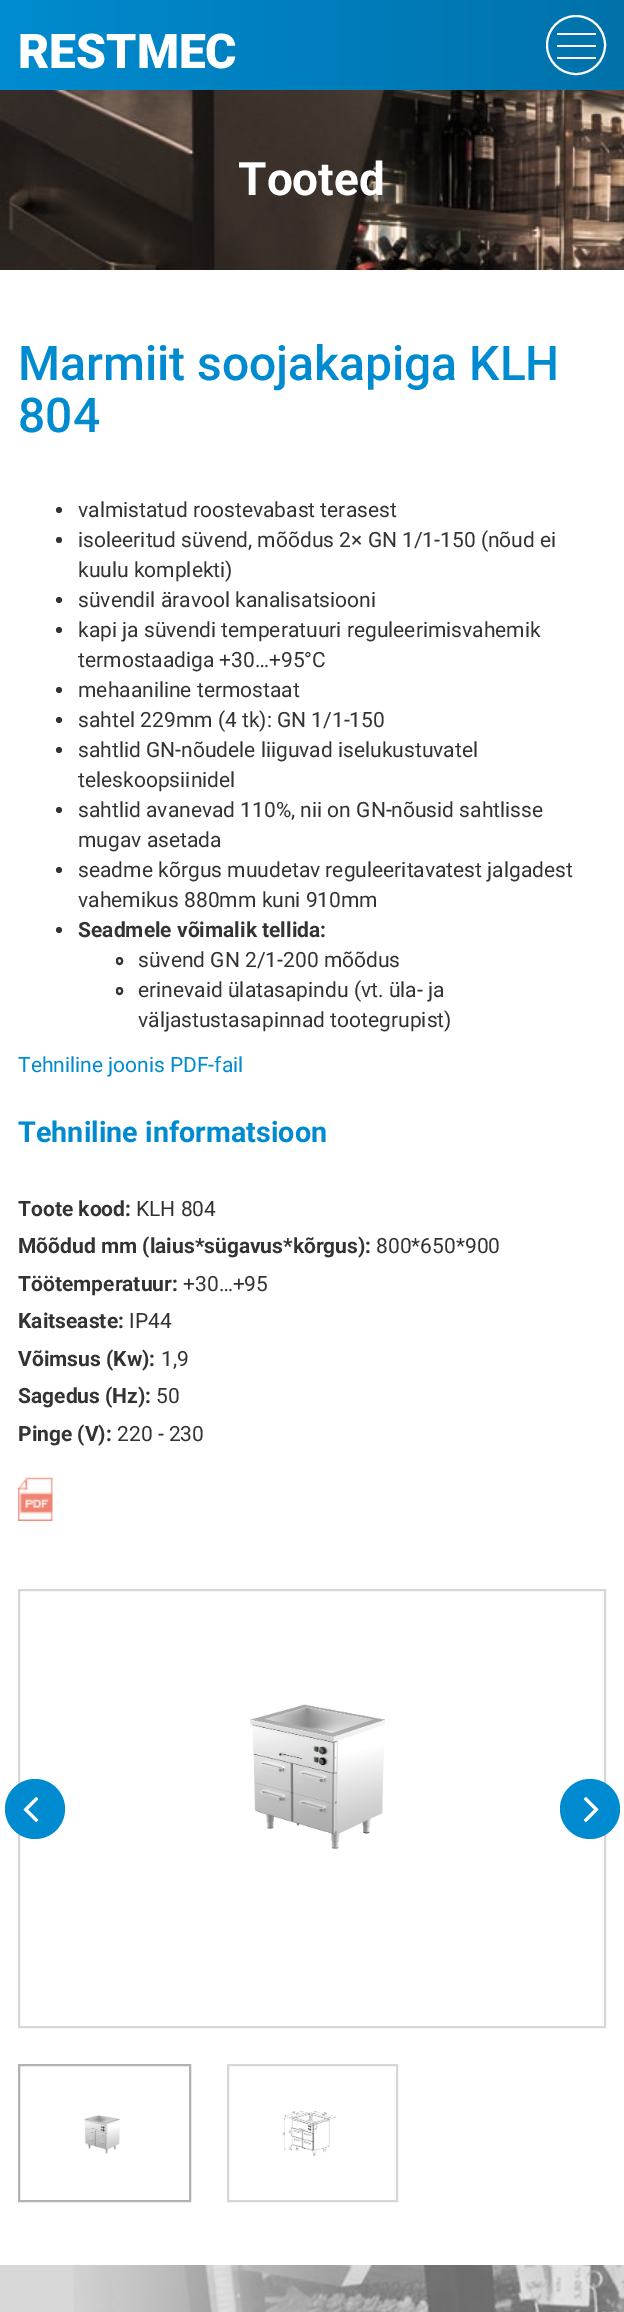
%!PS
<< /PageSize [624 2312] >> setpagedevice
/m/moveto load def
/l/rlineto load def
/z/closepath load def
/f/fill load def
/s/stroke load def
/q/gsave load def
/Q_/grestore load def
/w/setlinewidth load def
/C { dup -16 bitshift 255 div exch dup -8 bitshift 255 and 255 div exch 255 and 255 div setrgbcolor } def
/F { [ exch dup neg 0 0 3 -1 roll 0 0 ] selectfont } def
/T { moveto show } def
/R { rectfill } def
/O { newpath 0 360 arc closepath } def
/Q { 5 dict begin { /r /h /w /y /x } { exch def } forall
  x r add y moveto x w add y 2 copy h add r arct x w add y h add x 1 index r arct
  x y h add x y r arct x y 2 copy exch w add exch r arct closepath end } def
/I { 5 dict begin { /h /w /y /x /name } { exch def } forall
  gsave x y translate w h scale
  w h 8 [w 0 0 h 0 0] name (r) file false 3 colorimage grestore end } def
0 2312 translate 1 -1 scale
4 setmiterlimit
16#FFFFFF C
0 0 624 2312 R
q 0 0 m 624 0 l 0 90 l -624 0 l z clip newpath
<< /ShadingType 2 /ColorSpace /DeviceRGB /Coords [0 45 624 45] /Extend [true true] /Function << /FunctionType 2 /Domain [0 1] /C0 [0 .545 .816] /C1 [0 .447 .667] /N 1 >> >> shfill Q_
/Roboto-Black 48 F
(RESTMEC) 18 68 T
2 w
576 45 29 O s
557 33 39 2 R
557 45 39 2 R
557 57 39 2 R
(1.rgb) 0 90 624 180 I
/Roboto-Bold 46 F
(Tooted) 238 195 T
/Roboto-Medium 48 F
16#008BD0 C
(Marmiit soojakapiga KLH) 18 380 T
(804) 18 432 T
16#333333 C
59 510 3 O f
/Roboto-Regular 21 F
(valmistatud roostevabast terasest) 78 517 T
59 540 3 O f
(isoleeritud süvend, mõõdus 2× GN 1/1-150 \(nõud ei) 78 547 T
(kuulu komplekti\)) 78 577 T
59 600 3 O f
(süvendil äravool kanalisatsiooni) 78 607 T
59 630 3 O f
(kapi ja süvendi temperatuuri reguleerimisvahemik) 78 637 T
(termostaadiga +30…+95°C) 78 667 T
59 690 3 O f
(mehaaniline termostaat) 78 697 T
59 720 3 O f
(sahtel 229mm \(4 tk\): GN 1/1-150) 78 727 T
59 750 3 O f
(sahtlid GN-nõudele liiguvad iselukustuvatel) 78 757 T
(teleskoopsiinidel) 78 787 T
59 810 3 O f
(sahtlid avanevad 110%, nii on GN-nõusid sahtlisse) 78 817 T
(mugav asetada) 78 847 T
59 870 3 O f
(seadme kõrgus muudetav reguleeritavatest jalgadest) 78 877 T
(vahemikus 880mm kuni 910mm) 78 907 T
59 930 3 O f
/Roboto-Bold 21 F
(Seadmele võimalik tellida:) 78 937 T
117 958 5 6 2.5 Q s
/Roboto-Regular 21 F
(süvend GN 2/1-200 mõõdus) 138 967 T
117 988 5 6 2.5 Q s
(erinevaid ülatasapindu \(vt. üla- ja) 138 997 T
(väljastustasapinnad tootegrupist\)) 138 1027 T
16#008BD0 C
(Tehniline joonis PDF-fail) 18 1072 T
/Roboto-Bold 28.75 F
(Tehniline informatsioon) 18 1142 T
/Roboto-Bold 21 F
16#333333 C
(Toote kood:) 18 1216 T
/Roboto-Regular 21 F
(KLH 804) 136 1216 T
/Roboto-Bold 21 F
(Mõõdud mm \(laius*sügavus*kõrgus\):) 18 1253 T
/Roboto-Regular 21 F
(800*650*900) 376 1253 T
/Roboto-Bold 21 F
(Töötemperatuur:) 18 1291 T
/Roboto-Regular 21 F
(+30…+95) 183 1291 T
/Roboto-Bold 21 F
(Kaitseaste:) 18 1328 T
/Roboto-Regular 21 F
(IP44) 129 1328 T
/Roboto-Bold 21 F
(Võimsus \(Kw\):) 18 1366 T
/Roboto-Regular 21 F
(1,9) 161 1366 T
/Roboto-Bold 21 F
(Sagedus \(Hz\):) 18 1403 T
/Roboto-Regular 21 F
(50) 156 1403 T
/Roboto-Bold 21 F
(Pinge \(V\):) 18 1441 T
/Roboto-Regular 21 F
(220 - 230) 117 1441 T
(2.rgb) 18 1477 35 44 I
16#D7D7D7 C
19 1590 586 437 rectstroke
(3.rgb) 250 1704 135 145 I
16#008BD0 C
35 1809 30 O f
(4.rgb) 23 1797 16 25 I
590 1809 30 O f
(5.rgb) 583 1797 16 25 I
16#B2B2B2 C
19 2065 171 136 rectstroke
(6.rgb) 84 2115 37 39 I
16#D7D7D7 C
228 2065 169 136 rectstroke
(7.rgb) 282 2111 55 45 I
0 2265 74 47 R
(8.rgb) 74 2265 550 47 I
showpage
